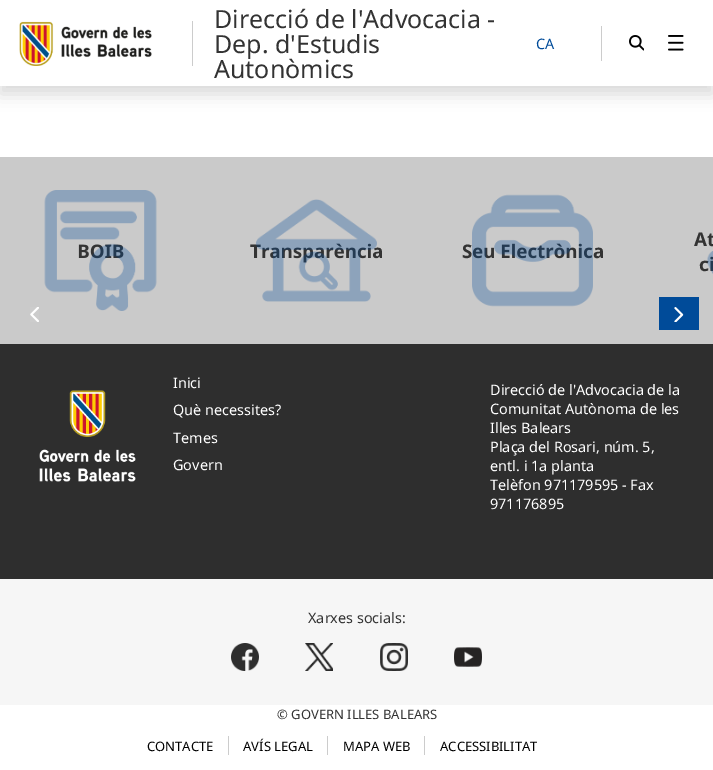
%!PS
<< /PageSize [713 770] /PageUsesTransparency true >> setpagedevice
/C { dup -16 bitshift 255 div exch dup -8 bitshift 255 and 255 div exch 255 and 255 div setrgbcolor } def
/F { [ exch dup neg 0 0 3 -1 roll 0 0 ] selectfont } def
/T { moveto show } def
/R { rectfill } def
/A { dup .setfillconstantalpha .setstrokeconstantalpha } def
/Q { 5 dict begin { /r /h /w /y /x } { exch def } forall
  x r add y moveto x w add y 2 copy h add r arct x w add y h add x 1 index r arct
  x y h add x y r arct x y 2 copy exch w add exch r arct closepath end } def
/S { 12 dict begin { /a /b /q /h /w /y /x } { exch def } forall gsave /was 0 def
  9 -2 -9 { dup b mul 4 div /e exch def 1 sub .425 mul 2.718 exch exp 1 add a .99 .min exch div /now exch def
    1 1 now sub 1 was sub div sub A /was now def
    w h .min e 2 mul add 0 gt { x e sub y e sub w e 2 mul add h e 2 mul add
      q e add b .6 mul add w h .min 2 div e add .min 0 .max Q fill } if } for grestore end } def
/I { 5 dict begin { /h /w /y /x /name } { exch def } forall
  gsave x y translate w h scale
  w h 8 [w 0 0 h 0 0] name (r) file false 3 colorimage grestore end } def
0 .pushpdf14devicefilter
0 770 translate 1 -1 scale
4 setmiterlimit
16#FFFFFF C
0 0 713 770 R
16#000000 C
0 8 713 86 0 8 .15 S
16#FFFFFF C
0 0 713 86 R
16#CCCCCC C
192 21 1 45 R
(1.rgb) 19 21 133 45 I
/NotoSans-Regular 25 F
16#333333 C
(Direcció de l'Advocacia -) 214 28 T
(Dep. d'Estudis) 214 53 T
(Autonòmics) 214 78 T
16#CCCCCC C
601 26 1 35 R
/NotoSans-Regular 14.4 F
16#004B99 C
(CA) 536 49 T
(2.rgb) 629 35 15 16 I
(3.rgb) 668 35 16 16 I
16#CACACA C
0 157 713 187 R
/NotoSans-Bold 18.75 F
16#333333 C
(BOIB) 77 258 T
(4.rgb) 44 190 113 121 I
(Transparència) 250 258 T
(5.rgb) 256 199 121 103 I
(Seu Electrònica) 462 258 T
(6.rgb) 472 194 121 113 I
(At) 694 246 T
(ci) 699 271 T
(7.rgb) 707 251 6 23 I
(8.rgb) 30 307 9 15 I
16#004B99 C
659 297 40 33 R
(9.rgb) 674 307 10 15 I
16#2E2E2E C
0 344 713 235 R
(10.rgb) 39 390 97 92 I
/NotoSans-Regular 14.4 F
16#FFFFFF C
(Inici) 173 388 T
(Què necessites?) 173 415 T
(Temes) 173 443 T
(Govern) 173 470 T
(Direcció de l'Advocacia de la) 490 395 T
(Comunitat Autònoma de les) 490 414 T
(Illes Balears) 490 433 T
(Plaça del Rosari, núm. 5,) 490 452 T
(entl. i 1a planta) 490 471 T
(Telèfon 971179595 - Fax) 490 490 T
(971176895) 490 509 T
16#F6F6F6 C
0 579 713 126 R
16#333333 C
(Xarxes socials:) 308 623 T
(11.rgb) 231 643 28 28 I
(12.rgb) 305 643 28 28 I
(13.rgb) 380 643 28 28 I
(14.rgb) 454 647 28 20 I
/NotoSans-Regular 13 F
(© GOVERN ILLES BALEARS) 277 719 T
16#CCCCCC C
228 736 1 19 R
16#000000 C
(CONTACTE) 147 751 T
16#CCCCCC C
327 736 1 19 R
16#000000 C
(AVÍS LEGAL) 243 751 T
16#CCCCCC C
424 736 1 19 R
16#000000 C
(MAPA WEB) 343 751 T
(ACCESSIBILITAT) 440 751 T
.poppdf14devicefilter showpage
